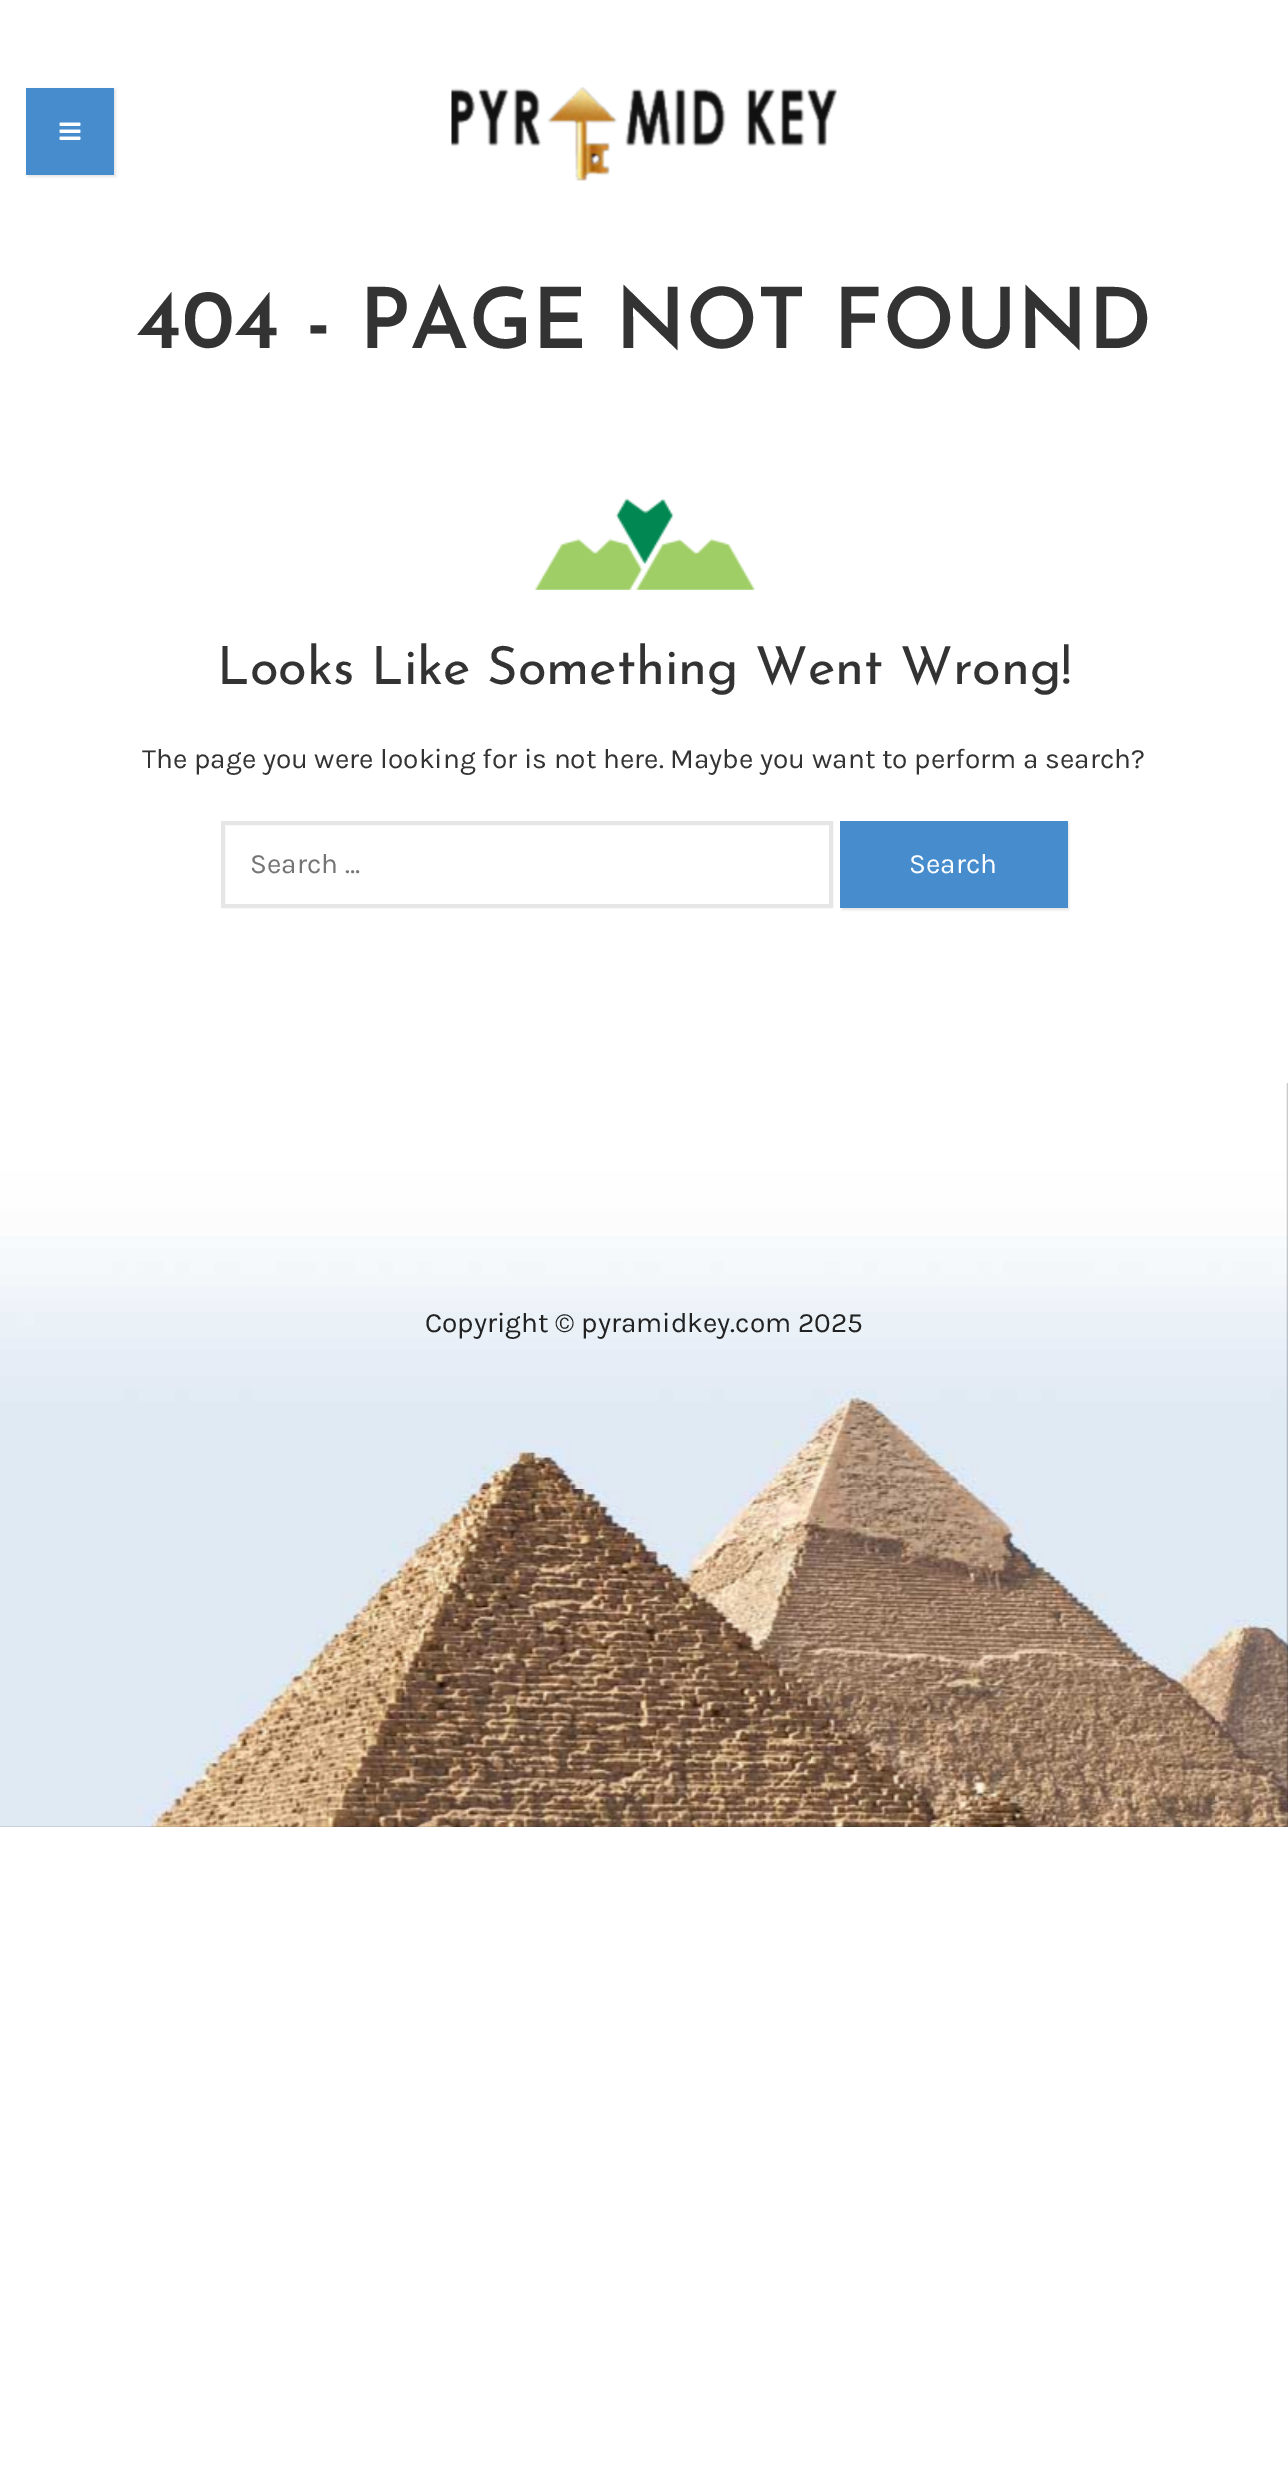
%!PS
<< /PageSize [1288 2482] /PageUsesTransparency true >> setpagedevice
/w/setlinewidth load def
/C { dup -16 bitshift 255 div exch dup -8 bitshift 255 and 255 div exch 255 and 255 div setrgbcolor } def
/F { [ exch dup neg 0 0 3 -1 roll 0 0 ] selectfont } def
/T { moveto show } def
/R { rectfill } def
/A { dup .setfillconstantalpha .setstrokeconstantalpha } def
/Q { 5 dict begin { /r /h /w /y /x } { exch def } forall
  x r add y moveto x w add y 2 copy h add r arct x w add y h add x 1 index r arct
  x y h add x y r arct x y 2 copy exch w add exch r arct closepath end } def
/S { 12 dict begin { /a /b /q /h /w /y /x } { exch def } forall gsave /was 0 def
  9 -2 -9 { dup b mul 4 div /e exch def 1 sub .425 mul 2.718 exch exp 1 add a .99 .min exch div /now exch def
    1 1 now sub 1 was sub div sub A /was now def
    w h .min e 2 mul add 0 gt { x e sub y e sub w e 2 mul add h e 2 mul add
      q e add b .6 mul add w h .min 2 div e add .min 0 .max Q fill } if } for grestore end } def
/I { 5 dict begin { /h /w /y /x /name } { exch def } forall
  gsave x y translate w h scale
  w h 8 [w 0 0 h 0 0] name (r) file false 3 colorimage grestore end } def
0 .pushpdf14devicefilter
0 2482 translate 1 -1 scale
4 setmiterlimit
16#FFFFFF C
0 0 1288 2482 R
16#000000 C
28 89 88 88 0 1 .1 S
16#478DCE C
26 88 88 87 R
(1.rgb) 59 122 22 18 I
(2.rgb) 451 87 386 94 I
/JosefinSans-SemiBold 84 F
16#333333 C
(404 - PAGE NOT FOUND) 136 348 T
(3.rgb) 535 498 220 92 I
/JosefinSans-Regular 52.5 F
(Looks Like Something Went Wrong!) 217 684 T
/Karla-Regular 28 F
(The page you were looking for is not here. Maybe you want to perform a search?) 142 768 T
16#E6E6E6 C
4 w
223 823 608 83 rectstroke
16#757575 C
(Search …) 250 873 T
16#000000 C
842 823 227 87 0 1 .1 S
16#478DCE C
840 821 228 87 R
16#FFFFFF C
(Search) 909 873 T
16#1A1A1A C
0 1083 1288 744 R
(4.rgb) 0 1083 1288 744 I
16#222222 C
(Copyright © pyramidkey.com 2025) 425 1332 T
.poppdf14devicefilter showpage
